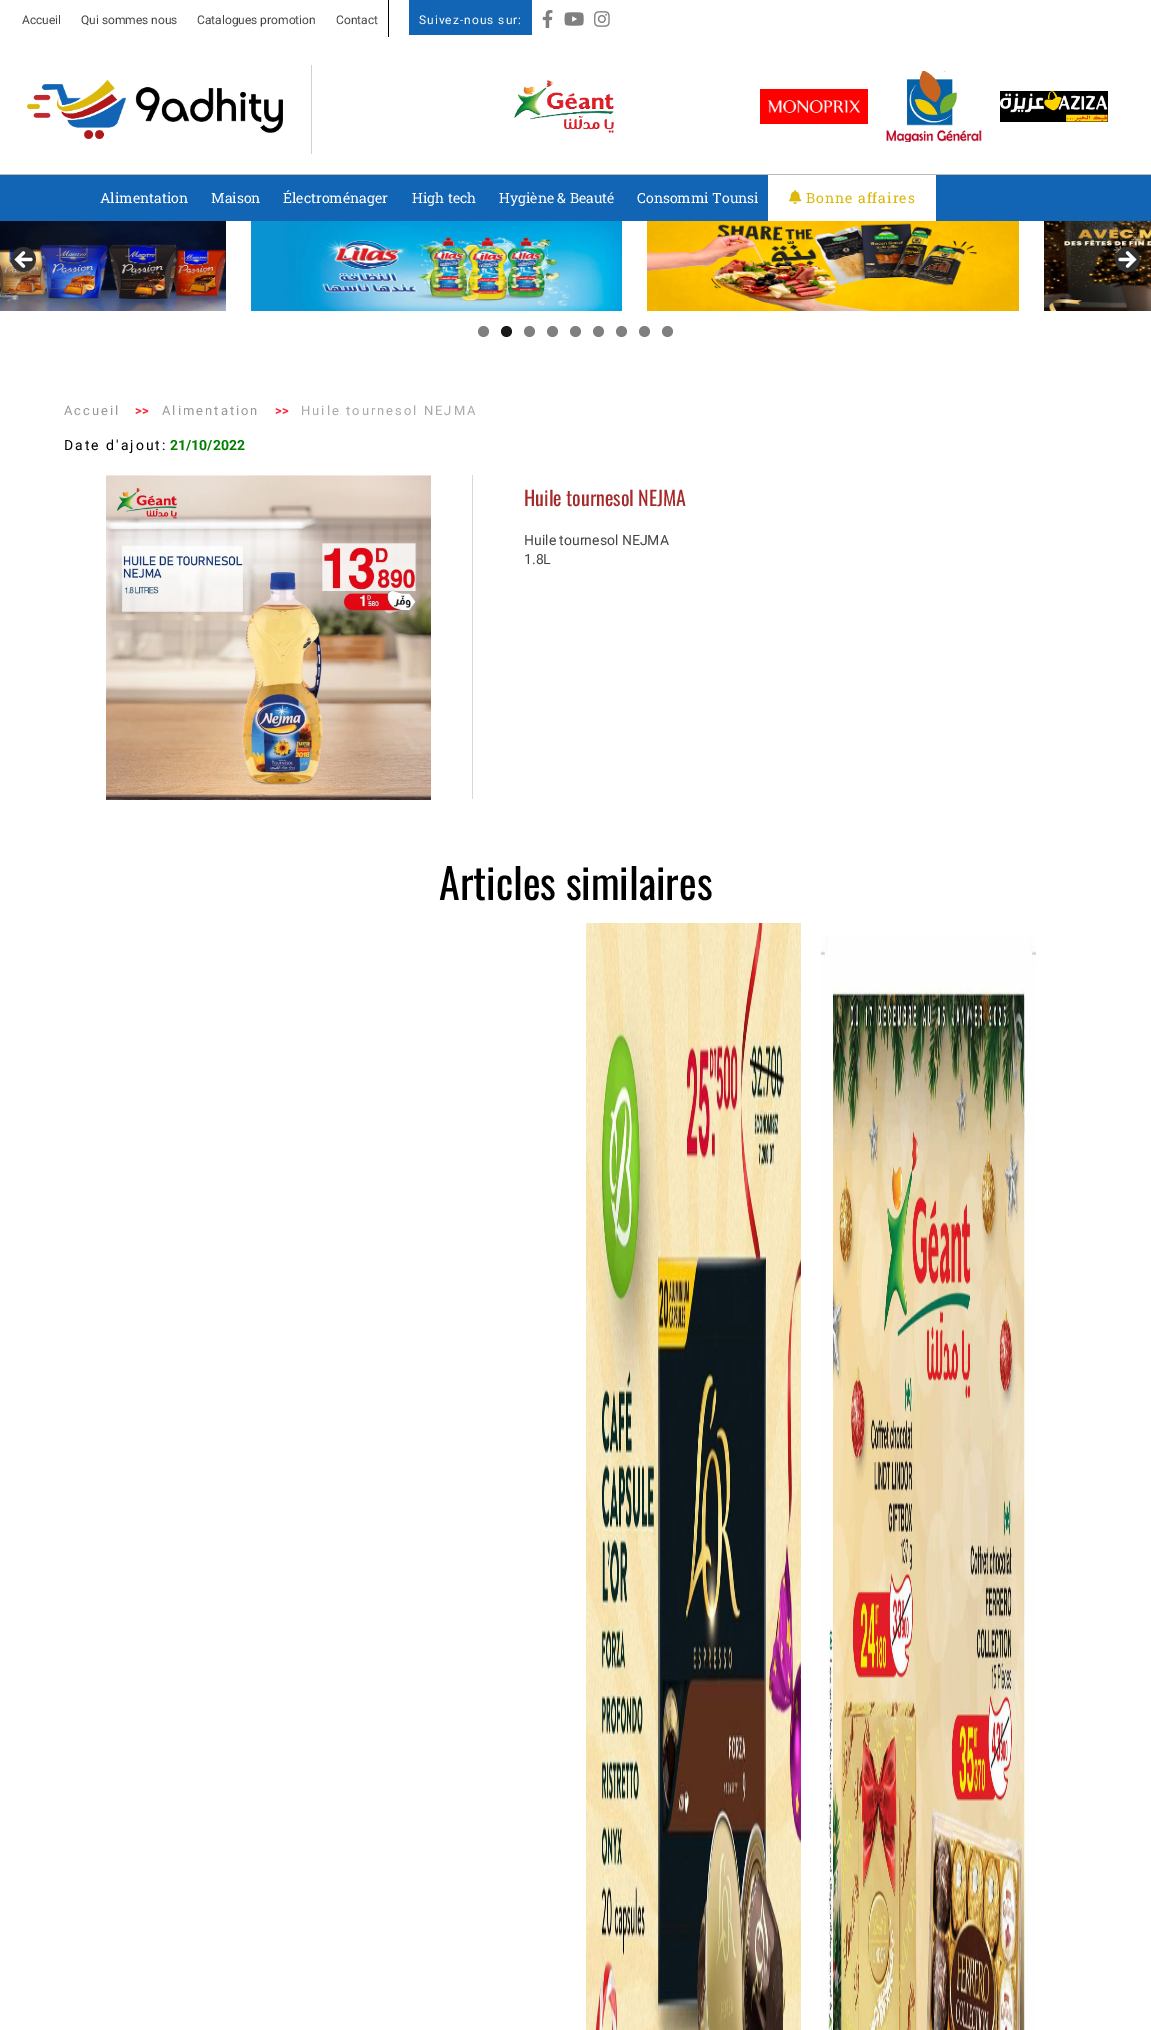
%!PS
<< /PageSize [1151 2030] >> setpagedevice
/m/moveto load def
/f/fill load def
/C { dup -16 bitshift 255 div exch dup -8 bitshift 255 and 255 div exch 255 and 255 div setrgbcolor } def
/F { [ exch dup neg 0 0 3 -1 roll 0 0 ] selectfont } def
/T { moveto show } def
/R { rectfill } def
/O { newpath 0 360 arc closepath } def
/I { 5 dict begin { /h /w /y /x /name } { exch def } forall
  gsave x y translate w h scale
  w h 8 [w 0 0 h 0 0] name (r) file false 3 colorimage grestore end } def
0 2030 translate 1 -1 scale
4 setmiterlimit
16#FFFFFF C
0 0 1151 2030 R
/Roboto-Regular 12 F
16#444444 C
(Accueil) 22 24 T
(Qui sommes nous) 81 24 T
(Catalogues promotion) 197 24 T
(Contact) 336 24 T
16#000000 C
388 0 1 37 R
16#1264B5 C
409 0 123 35 R
16#FFFFFF C
419 24 m 1 0 (Suivez-nous sur:) ashow
(1.rgb) 542 10 11 18 I
(2.rgb) 564 12 20 14 I
(3.rgb) 594 11 16 16 I
16#D1D1D1 C
311 65 1 89 R
(4.rgb) 27 80 256 59 I
(5.rgb) 514 80 100 53 I
(6.rgb) 760 89 108 35 I
(7.rgb) 886 71 97 71 I
(8.rgb) 1000 91 108 31 I
16#1264B5 C
0 175 1151 46 R
16#BBBBBB C
0 174 1151 1 R
/RobotoSlab-Regular 14 F
16#FFFFFF C
(Alimentation) 100 203 T
(Maison) 211 203 T
(Électroménager) 283 203 T
(High tech) 412 203 T
(Hygiène & Beauté) 499 203 T
(Consommi Tounsi) 637 203 T
768 175 168 46 R
(9.rgb) 789 190 13 14 I
16#DBB80B C
806 203 m 1 0 (Bonne affaires) ashow
(10.rgb) 0 221 226 90 I
(11.rgb) 251 221 371 90 I
(12.rgb) 647 221 372 90 I
(13.rgb) 1044 221 107 90 I
(14.rgb) 11 247 25 25 I
(15.rgb) 1115 247 25 25 I
16#808080 C
483.5 331.5 5.5 O f
16#1A1A1A C
506.5 331.5 5.5 O f
16#808080 C
529.5 331.5 5.5 O f
552.5 331.5 5.5 O f
575.5 331.5 5.5 O f
598.5 331.5 5.5 O f
621.5 331.5 5.5 O f
644.5 331.5 5.5 O f
667.5 331.5 5.5 O f
/Roboto-Regular 13 F
16#999999 C
64 415 m 2 0 (Accueil) ashow
/Roboto-Bold 13 F
16#FF253A C
(>>) 135 415 T
/Roboto-Regular 13 F
16#999999 C
162 415 m 2 0 (Alimentation) ashow
/Roboto-Bold 13 F
16#FF253A C
(>>) 275 415 T
/Roboto-Regular 13 F
16#AAAAAA C
301 415 m 2 0 (Huile tournesol NEJMA) ashow
/Roboto-Regular 14 F
16#000000 C
64 450 m 2 0 (Date d'ajout:) ashow
/Roboto-Bold 14 F
16#008000 C
(21/10/2022) 170 450 T
16#D8D8D8 C
472 475 1 324 R
(16.rgb) 106 475 325 325 I
/Oswald-Regular 20 F
16#A52A2A C
(Huile tournesol NEJMA) 524 506 T
/Roboto-Regular 14 F
16#444444 C
(Huile tournesol NEJMA) 524 545 T
(1.8L) 524 564 T
/Oswald-Regular 42 F
16#000000 C
(Articles similaires) 439 900 T
(17.rgb) 586 923 215 1107 I
(18.rgb) 821 936 215 1094 I
showpage
